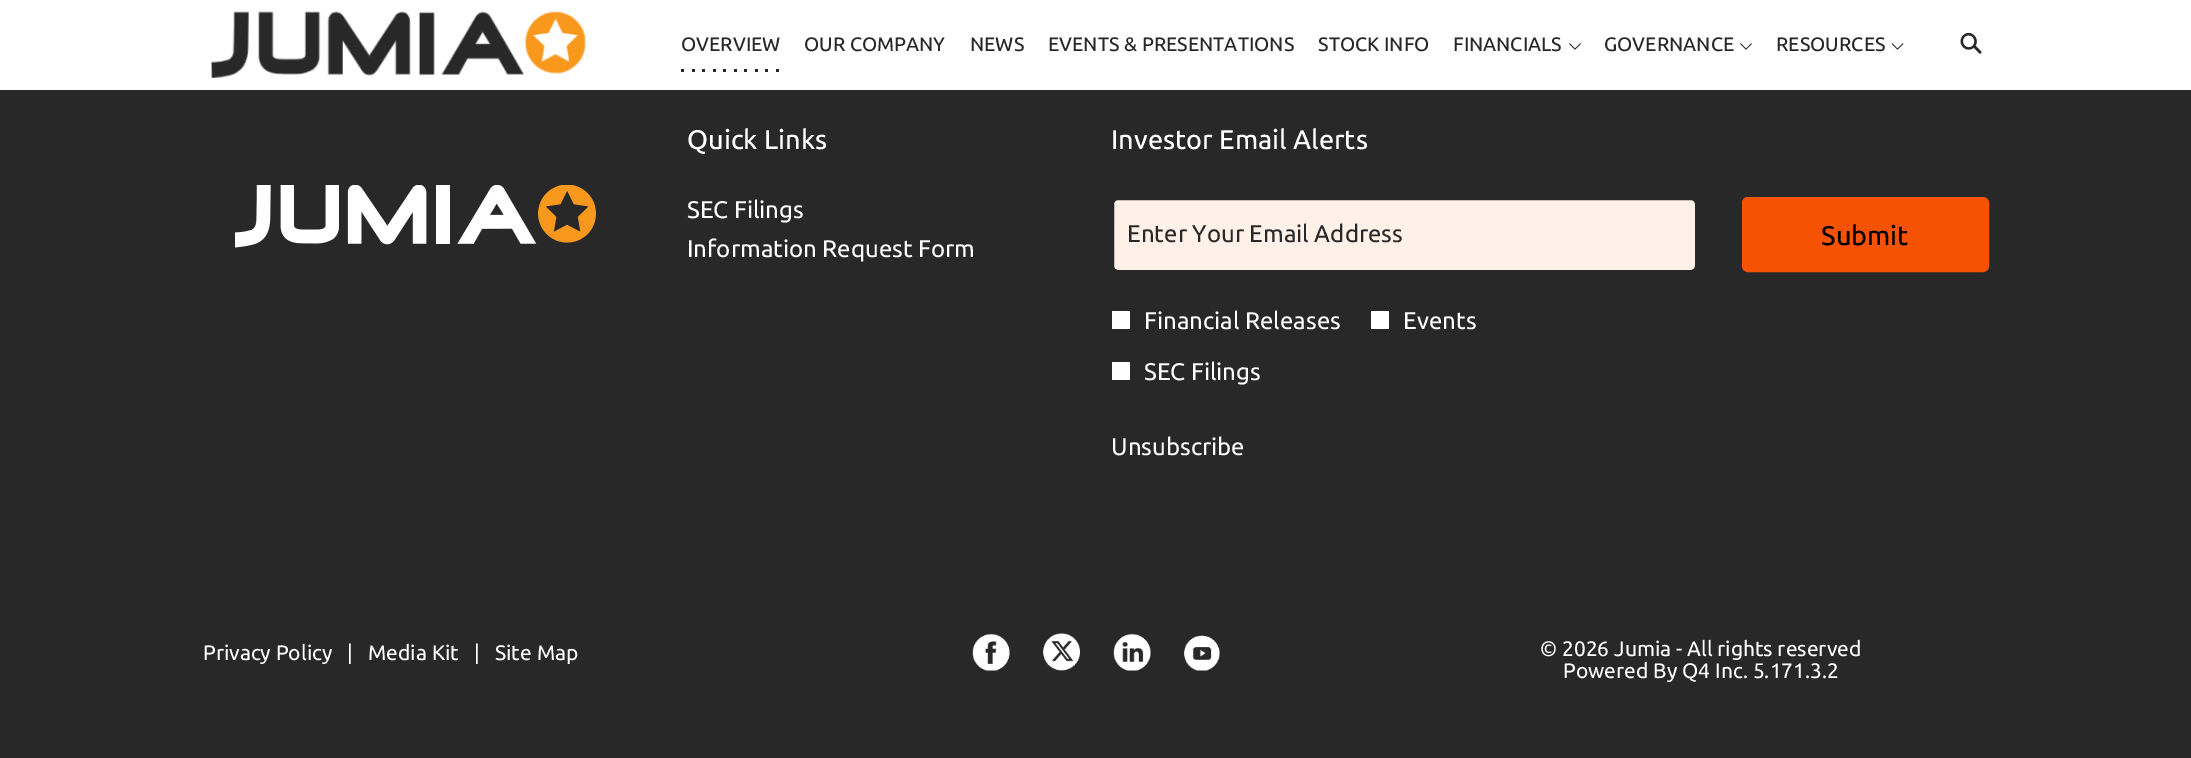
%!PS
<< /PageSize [2191 758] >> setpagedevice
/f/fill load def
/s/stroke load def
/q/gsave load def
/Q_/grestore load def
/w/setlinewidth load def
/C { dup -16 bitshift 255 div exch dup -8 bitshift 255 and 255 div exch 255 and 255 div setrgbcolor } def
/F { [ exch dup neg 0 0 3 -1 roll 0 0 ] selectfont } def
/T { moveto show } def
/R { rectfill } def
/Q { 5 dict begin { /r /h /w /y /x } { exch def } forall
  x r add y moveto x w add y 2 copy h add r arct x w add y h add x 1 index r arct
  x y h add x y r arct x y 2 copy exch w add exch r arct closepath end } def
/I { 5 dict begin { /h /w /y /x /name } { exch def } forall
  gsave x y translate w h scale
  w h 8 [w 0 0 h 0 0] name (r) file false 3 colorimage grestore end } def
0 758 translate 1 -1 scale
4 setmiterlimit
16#282828 C
0 0 2191 758 R
16#FFFFFF C
0 0 2191 90 R
(1.rgb) 211 11 375 67 I
16#282828 C
681 69 3 3 R
692 69 3 3 R
702 69 3 3 R
713 69 3 3 R
723 69 3 3 R
734 69 3 3 R
744 69 3 3 R
755 69 3 3 R
765 69 3 3 R
776 69 3 3 R
/Ubuntu-Medium 19.5 F
(OVERVIEW) 681 51 T
(OUR COMPANY) 804 51 T
(NEWS) 970 51 T
(EVENTS & PRESENTATIONS) 1048 51 T
(STOCK INFO) 1318 51 T
(FINANCIALS) 1453 51 T
(2.rgb) 1569 43 12 7 I
(GOVERNANCE) 1604 51 T
(2.rgb) 1740 43 12 7 I
(RESOURCES) 1776 51 T
(3.rgb) 1891 43 13 7 I
(4.rgb) 1960 32 22 22 I
(5.rgb) 234 185 362 63 I
/Ubuntu-Medium 27 F
16#FFFFFF C
(Quick Links) 687 149 T
/Ubuntu-Regular 24 F
(SEC Filings) 687 218 T
(Information Request Form) 687 257 T
/Ubuntu-Medium 27 F
(Investor Email Alerts) 1111 149 T
16#FFF0E8 C
1113 199 583 72 5 Q q f Q_
16#282828 C
2 w
s
/Ubuntu-Regular 24 F
(Enter Your Email Address) 1127 242 T
16#F55203 C
1743 198 245 73 5 Q q f Q_
s
/Ubuntu-Medium 27 F
16#000000 C
(Submit) 1821 245 T
16#FFFFFF C
1112 311 18 18 R
/Ubuntu-Regular 24 F
(Financial Releases) 1144 329 T
1371 311 18 18 R
(Events) 1403 329 T
1112 362 18 18 R
(SEC Filings) 1144 380 T
(Unsubscribe) 1111 455 T
/Ubuntu-Regular 21 F
(Privacy Policy) 203 660 T
(|) 347 660 T
(Media Kit) 368 660 T
(|) 474 660 T
(Site Map) 495 660 T
(6.rgb) 972 633 38 38 I
(7.rgb) 1043 633 37 38 I
(8.rgb) 1113 633 38 38 I
(9.rgb) 1184 635 36 36 I
(© 2026 Jumia - All rights reserved) 1540 656 T
(Powered By Q4 Inc. 5.171.3.2) 1563 678 T
showpage
